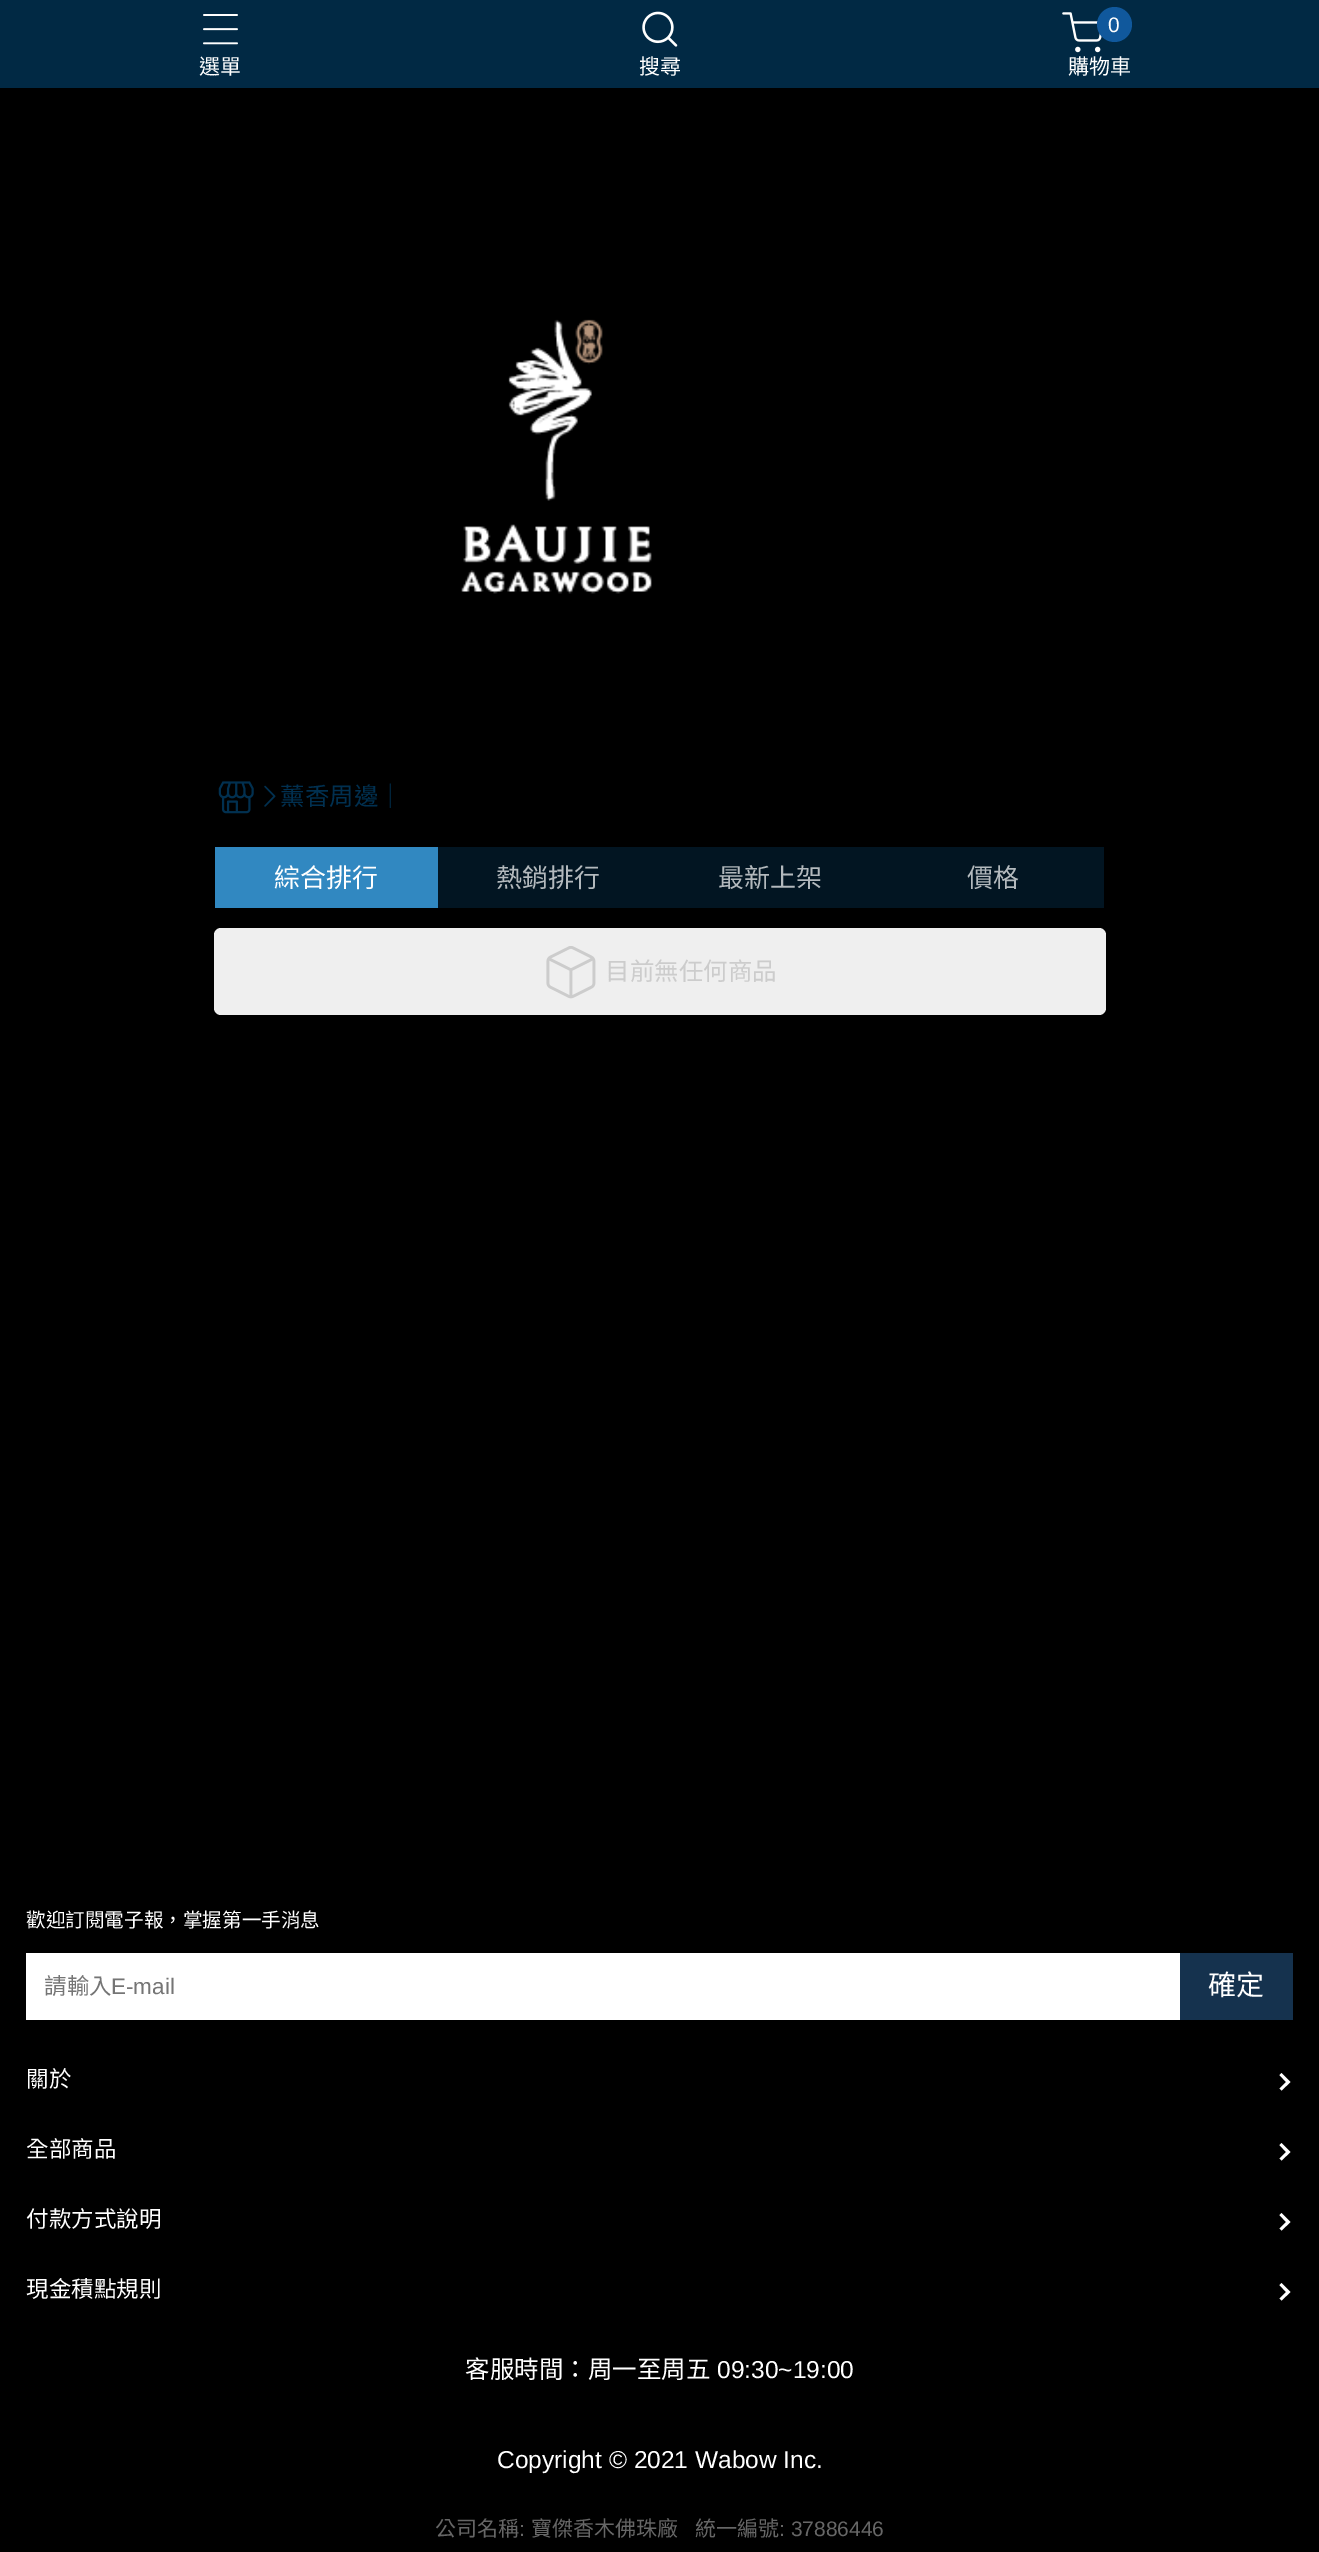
%!PS
<< /PageSize [1319 2552] >> setpagedevice
/m/moveto load def
/l/rlineto load def
/z/closepath load def
/f/fill load def
/C { dup -16 bitshift 255 div exch dup -8 bitshift 255 and 255 div exch 255 and 255 div setrgbcolor } def
/F { [ exch dup neg 0 0 3 -1 roll 0 0 ] selectfont } def
/T { moveto show } def
/R { rectfill } def
/O { newpath 0 360 arc closepath } def
/Q { 5 dict begin { /r /h /w /y /x } { exch def } forall
  x r add y moveto x w add y 2 copy h add r arct x w add y h add x 1 index r arct
  x y h add x y r arct x y 2 copy exch w add exch r arct closepath end } def
/I { 5 dict begin { /h /w /y /x /name } { exch def } forall
  gsave x y translate w h scale
  w h 8 [w 0 0 h 0 0] name (r) file false 3 colorimage grestore end } def
0 2552 translate 1 -1 scale
4 setmiterlimit
16#000000 C
0 0 1319 2552 R
16#012944 C
0 0 1319 88 R
(1.rgb) 203 14 35 31 I
/NotoSansCJKTC-Regular 21 F
16#FFFFFF C
(選單) 199 74 T
(2.rgb) 642 11 36 36 I
(搜尋) 639 74 T
(3.rgb) 1062 12 40 41 I
16#10589C C
1114.5 24.5 17.5 O f
/LiberationSans-Regular 21 F
16#FFFFFF C
1108 32 m 2 0 (0) ashow
/NotoSansCJKTC-Regular 21 F
(購物車) 1068 74 T
(4.rgb) 461 319 191 275 I
(5.rgb) 218 781 36 33 I
(6.rgb) 264 785 12 22 I
/NotoSansCJKTC-Regular 24.5 F
16#013050 C
(薰香周邊｜) 280 805 T
16#3188C1 C
215 847 223 61 R
/NotoSansCJKTC-Regular 26 F
16#FFFFFF C
(綜合排行) 274 887 T
16#021522 C
438 847 666 61 R
16#B3B9BD C
(熱銷排行) 496 887 T
(最新上架) 718 887 T
(價格) 967 887 T
16#EFEFEF C
214 928 892 87 7 Q f
(7.rgb) 546 946 50 53 I
/NotoSansCJKTC-Regular 24.5 F
16#CCCCCC C
(目前無任何商品) 605 980 T
/NotoSansCJKTC-Regular 19.6 F
16#FFFFFF C
(歡迎訂閱電子報，掌握第一手消息) 26 1927 T
26 1953 1154 67 R
/NotoSansCJKTC-Regular 22.5 F
16#757575 C
(請輸入) 44 1994 T
/LiberationSans-Regular 22.5 F
(E-mail) 111 1994 T
16#15324E C
1180 1953 113 67 R
/NotoSansCJKTC-Regular 28 F
16#FFFFFF C
(確定) 1208 1995 T
/NotoSansCJKTC-Regular 22.5 F
(關於) 26 2087 T
1279.5 2088.5 m 6.5 -6.5 l -6.5 -7 l 2 -2 l 9 9 l -9 8.5 l z f
(全部商品) 26 2157 T
1279.5 2158.5 m 6.5 -6.5 l -6.5 -7 l 2 -2 l 9 9 l -9 8.5 l z f
(付款方式說明) 26 2227 T
1279.5 2228.5 m 6.5 -6.5 l -6.5 -7 l 2 -2 l 9 9 l -9 8.5 l z f
(現金積點規則) 26 2297 T
1279.5 2298.5 m 6.5 -6.5 l -6.5 -7 l 2 -2 l 9 9 l -9 8.5 l z f
/NotoSansCJKTC-Regular 24.5 F
(客服時間：周一至周五) 465 2378 T
/LiberationSans-Regular 24.5 F
(09:30~19:00) 717 2378 T
(Copyright © 2021 Wabow Inc.) 497 2468 T
/NotoSansCJKTC-Regular 21 F
16#666666 C
(公司名稱) 435 2536 T
/LiberationSans-Regular 21 F
(:) 519 2536 T
/NotoSansCJKTC-Regular 21 F
(寶傑香木佛珠廠) 531 2536 T
(統一編號) 695 2536 T
/LiberationSans-Regular 21 F
(: 37886446) 779 2536 T
showpage
